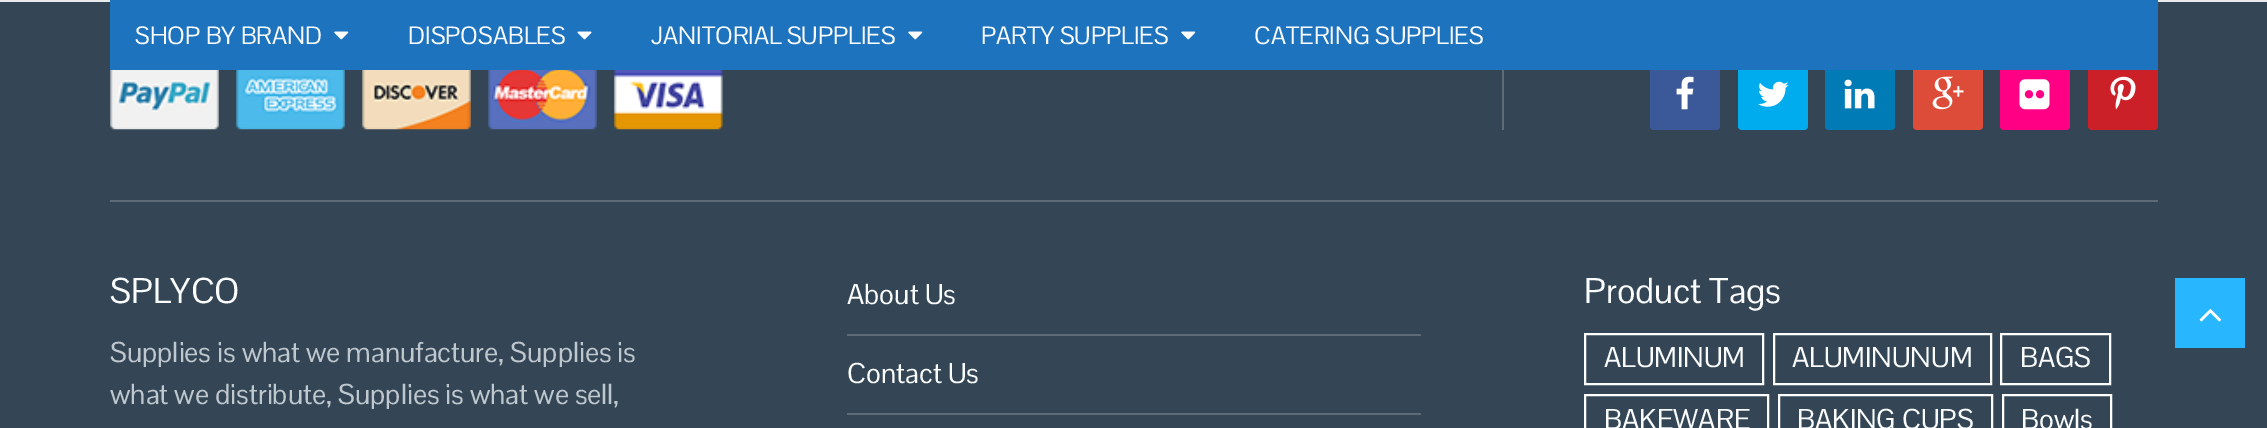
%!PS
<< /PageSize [2267 428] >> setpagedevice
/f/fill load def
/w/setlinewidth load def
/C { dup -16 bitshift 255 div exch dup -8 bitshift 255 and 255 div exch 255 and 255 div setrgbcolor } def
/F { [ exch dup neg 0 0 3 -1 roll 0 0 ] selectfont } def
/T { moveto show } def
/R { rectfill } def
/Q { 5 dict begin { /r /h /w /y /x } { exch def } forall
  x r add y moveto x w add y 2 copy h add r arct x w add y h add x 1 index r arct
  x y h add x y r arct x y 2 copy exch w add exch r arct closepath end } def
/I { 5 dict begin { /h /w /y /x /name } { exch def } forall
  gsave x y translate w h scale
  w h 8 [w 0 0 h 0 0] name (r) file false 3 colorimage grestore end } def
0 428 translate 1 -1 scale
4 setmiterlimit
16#344655 C
0 0 2267 428 R
16#EAEBEC C
0 0 2267 2 R
16#3B5998 C
1650 60 70 70 4 Q f
16#00ACED C
1738 60 70 70 4 Q f
16#007BB6 C
1825 60 70 70 4 Q f
16#DD4B39 C
1913 60 70 70 4 Q f
16#FF0084 C
2000 60 70 70 4 Q f
16#CB2027 C
2088 60 70 70 4 Q f
16#1E73BE C
110 0 2048 70 R
/PontanoSans-Regular 24.5 F
16#FAFCFD C
(SHOP BY BRAND) 135 44 T
(1.rgb) 334 31 15 9 I
(DISPOSABLES) 408 44 T
(2.rgb) 577 31 15 9 I
(JANITORIAL SUPPLIES) 651 44 T
(1.rgb) 908 31 15 9 I
(PARTY SUPPLIES) 981 44 T
(1.rgb) 1181 31 15 9 I
(CATERING SUPPLIES) 1254 44 T
16#5D6B77 C
110 200 2048 2 R
1502 70 2 60 R
(3.rgb) 110 70 109 60 I
(4.rgb) 236 70 109 60 I
(5.rgb) 362 70 109 60 I
(6.rgb) 488 70 109 60 I
(7.rgb) 614 70 109 60 I
(8.rgb) 1676 76 18 34 I
(9.rgb) 1758 81 31 26 I
(10.rgb) 1844 79 31 30 I
(11.rgb) 1932 76 32 34 I
(12.rgb) 2019 79 31 31 I
(13.rgb) 2110 76 26 34 I
/PontanoSans-Regular 35 F
16#FAFCFD C
(SPLYCO) 110 303 T
/PontanoSans-Regular 28 F
16#C0C8CF C
(Supplies is what we manufacture, Supplies is) 110 362 T
(what we distribute, Supplies is what we sell,) 110 404 T
16#5D6B77 C
847 334 574 2 R
16#FAFCFD C
(About Us) 847 304 T
16#5D6B77 C
847 413 574 2 R
16#FAFCFD C
(Contact Us) 847 383 T
/PontanoSans-Regular 35 F
(Product Tags) 1584 303 T
16#FFFFFF C
2 w
1585 334 178 50 rectstroke
/PontanoSans-Regular 28 F
16#FAFCFD C
(ALUMINUM) 1604 367 T
16#FFFFFF C
1774 334 217 50 rectstroke
16#FAFCFD C
(ALUMINUNUM) 1792 367 T
16#FFFFFF C
2001 334 109 50 rectstroke
16#FAFCFD C
(BAGS) 2020 367 T
16#FFFFFF C
1585 395 183 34 rectstroke
16#FAFCFD C
(BAKEWARE) 1604 429 T
16#FFFFFF C
1779 395 213 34 rectstroke
16#FAFCFD C
(BAKING CUPS) 1797 429 T
16#FFFFFF C
2003 395 108 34 rectstroke
16#FAFCFD C
(Bowls) 2021 429 T
16#28B7FF C
2175 278 70 70 R
(14.rgb) 2199 309 22 13 I
showpage
